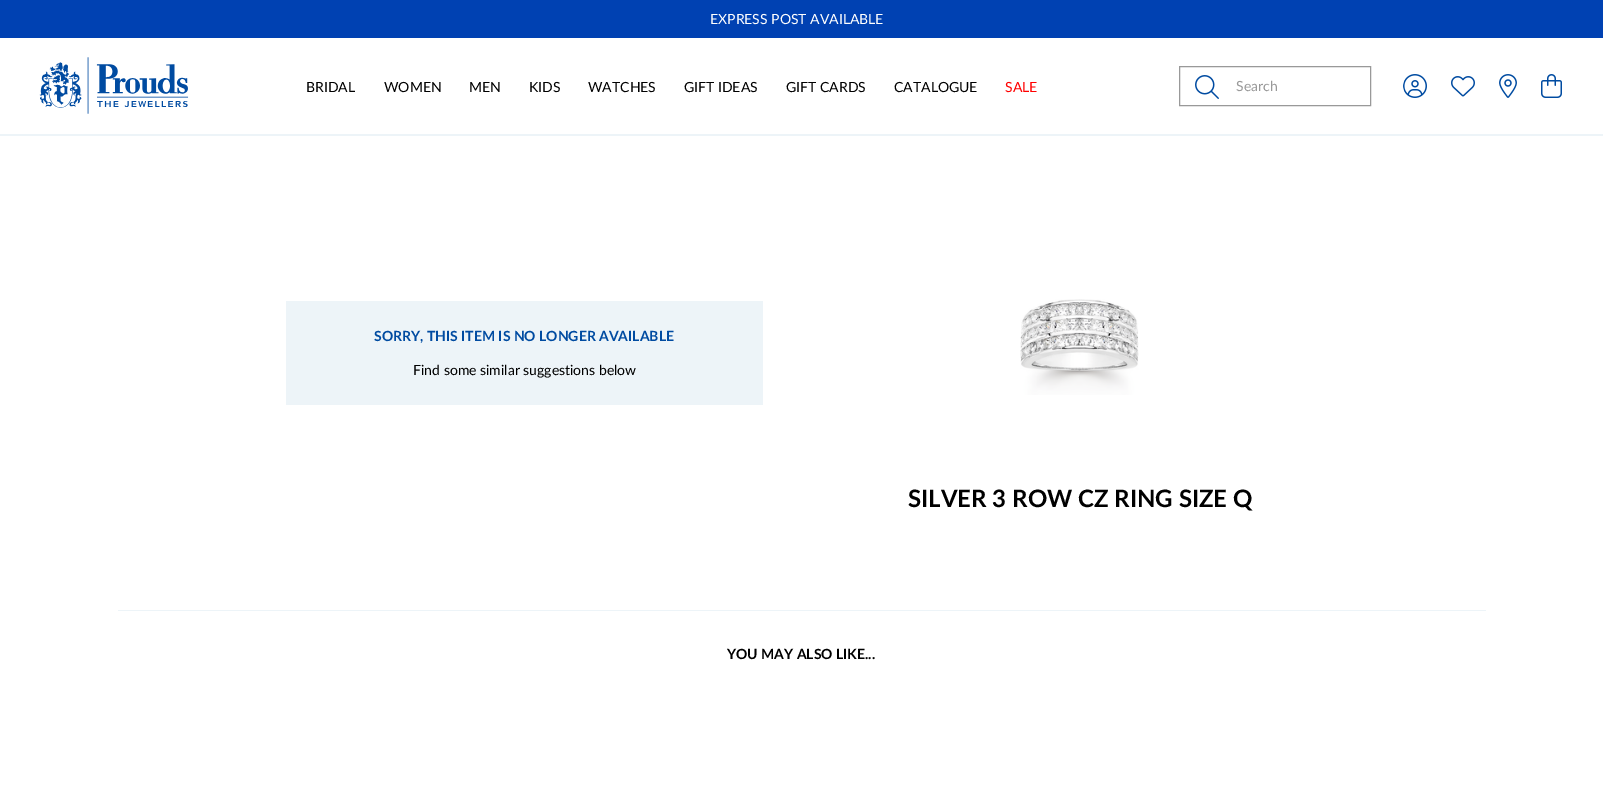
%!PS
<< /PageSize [1603 787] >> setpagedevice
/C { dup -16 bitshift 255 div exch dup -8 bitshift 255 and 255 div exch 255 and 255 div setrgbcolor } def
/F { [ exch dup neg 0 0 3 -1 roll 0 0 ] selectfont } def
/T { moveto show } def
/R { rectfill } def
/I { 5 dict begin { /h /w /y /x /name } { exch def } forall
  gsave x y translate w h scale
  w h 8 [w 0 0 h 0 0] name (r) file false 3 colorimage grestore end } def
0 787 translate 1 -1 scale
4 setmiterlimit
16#FFFFFF C
0 0 1603 787 R
16#EDF4F8 C
0 134 1603 2 R
16#0041B2 C
0 0 1603 38 R
/Lato-Regular 14 F
16#FFFFFF C
(EXPRESS POST AVAILABLE) 710 24 T
(1.rgb) 39 57 150 57 I
16#000000 C
(BRIDAL) 306 92 T
(WOMEN) 384 92 T
(MEN) 469 92 T
(KIDS) 529 92 T
(WATCHES) 588 92 T
(GIFT IDEAS) 684 92 T
(GIFT CARDS) 786 92 T
(CATALOGUE) 894 92 T
16#FF0000 C
(SALE) 1005 92 T
16#999999 C
1179.5 66.5 191 39 rectstroke
(2.rgb) 1195 75 24 24 I
(Search) 1236 91 T
(3.rgb) 1403 74 24 24 I
(4.rgb) 1451 76 24 21 I
(5.rgb) 1499 74 18 24 I
(6.rgb) 1541 74 21 24 I
16#EDF4F8 C
286 301 477 104 R
/Lato-Bold 14 F
16#004BA1 C
(SORRY, THIS ITEM IS NO LONGER AVAILABLE) 374 341 T
/Lato-Regular 14 F
16#000000 C
(Find some similar suggestions below) 413 375 T
(7.rgb) 1020 299 119 96 I
/Lato-Bold 24 F
(SILVER 3 ROW CZ RING SIZE Q) 908 507 T
16#EDF4F8 C
118 610 1368 1 R
/Lato-Bold 14 F
16#000000 C
(YOU MAY ALSO LIKE...) 727 659 T
showpage
